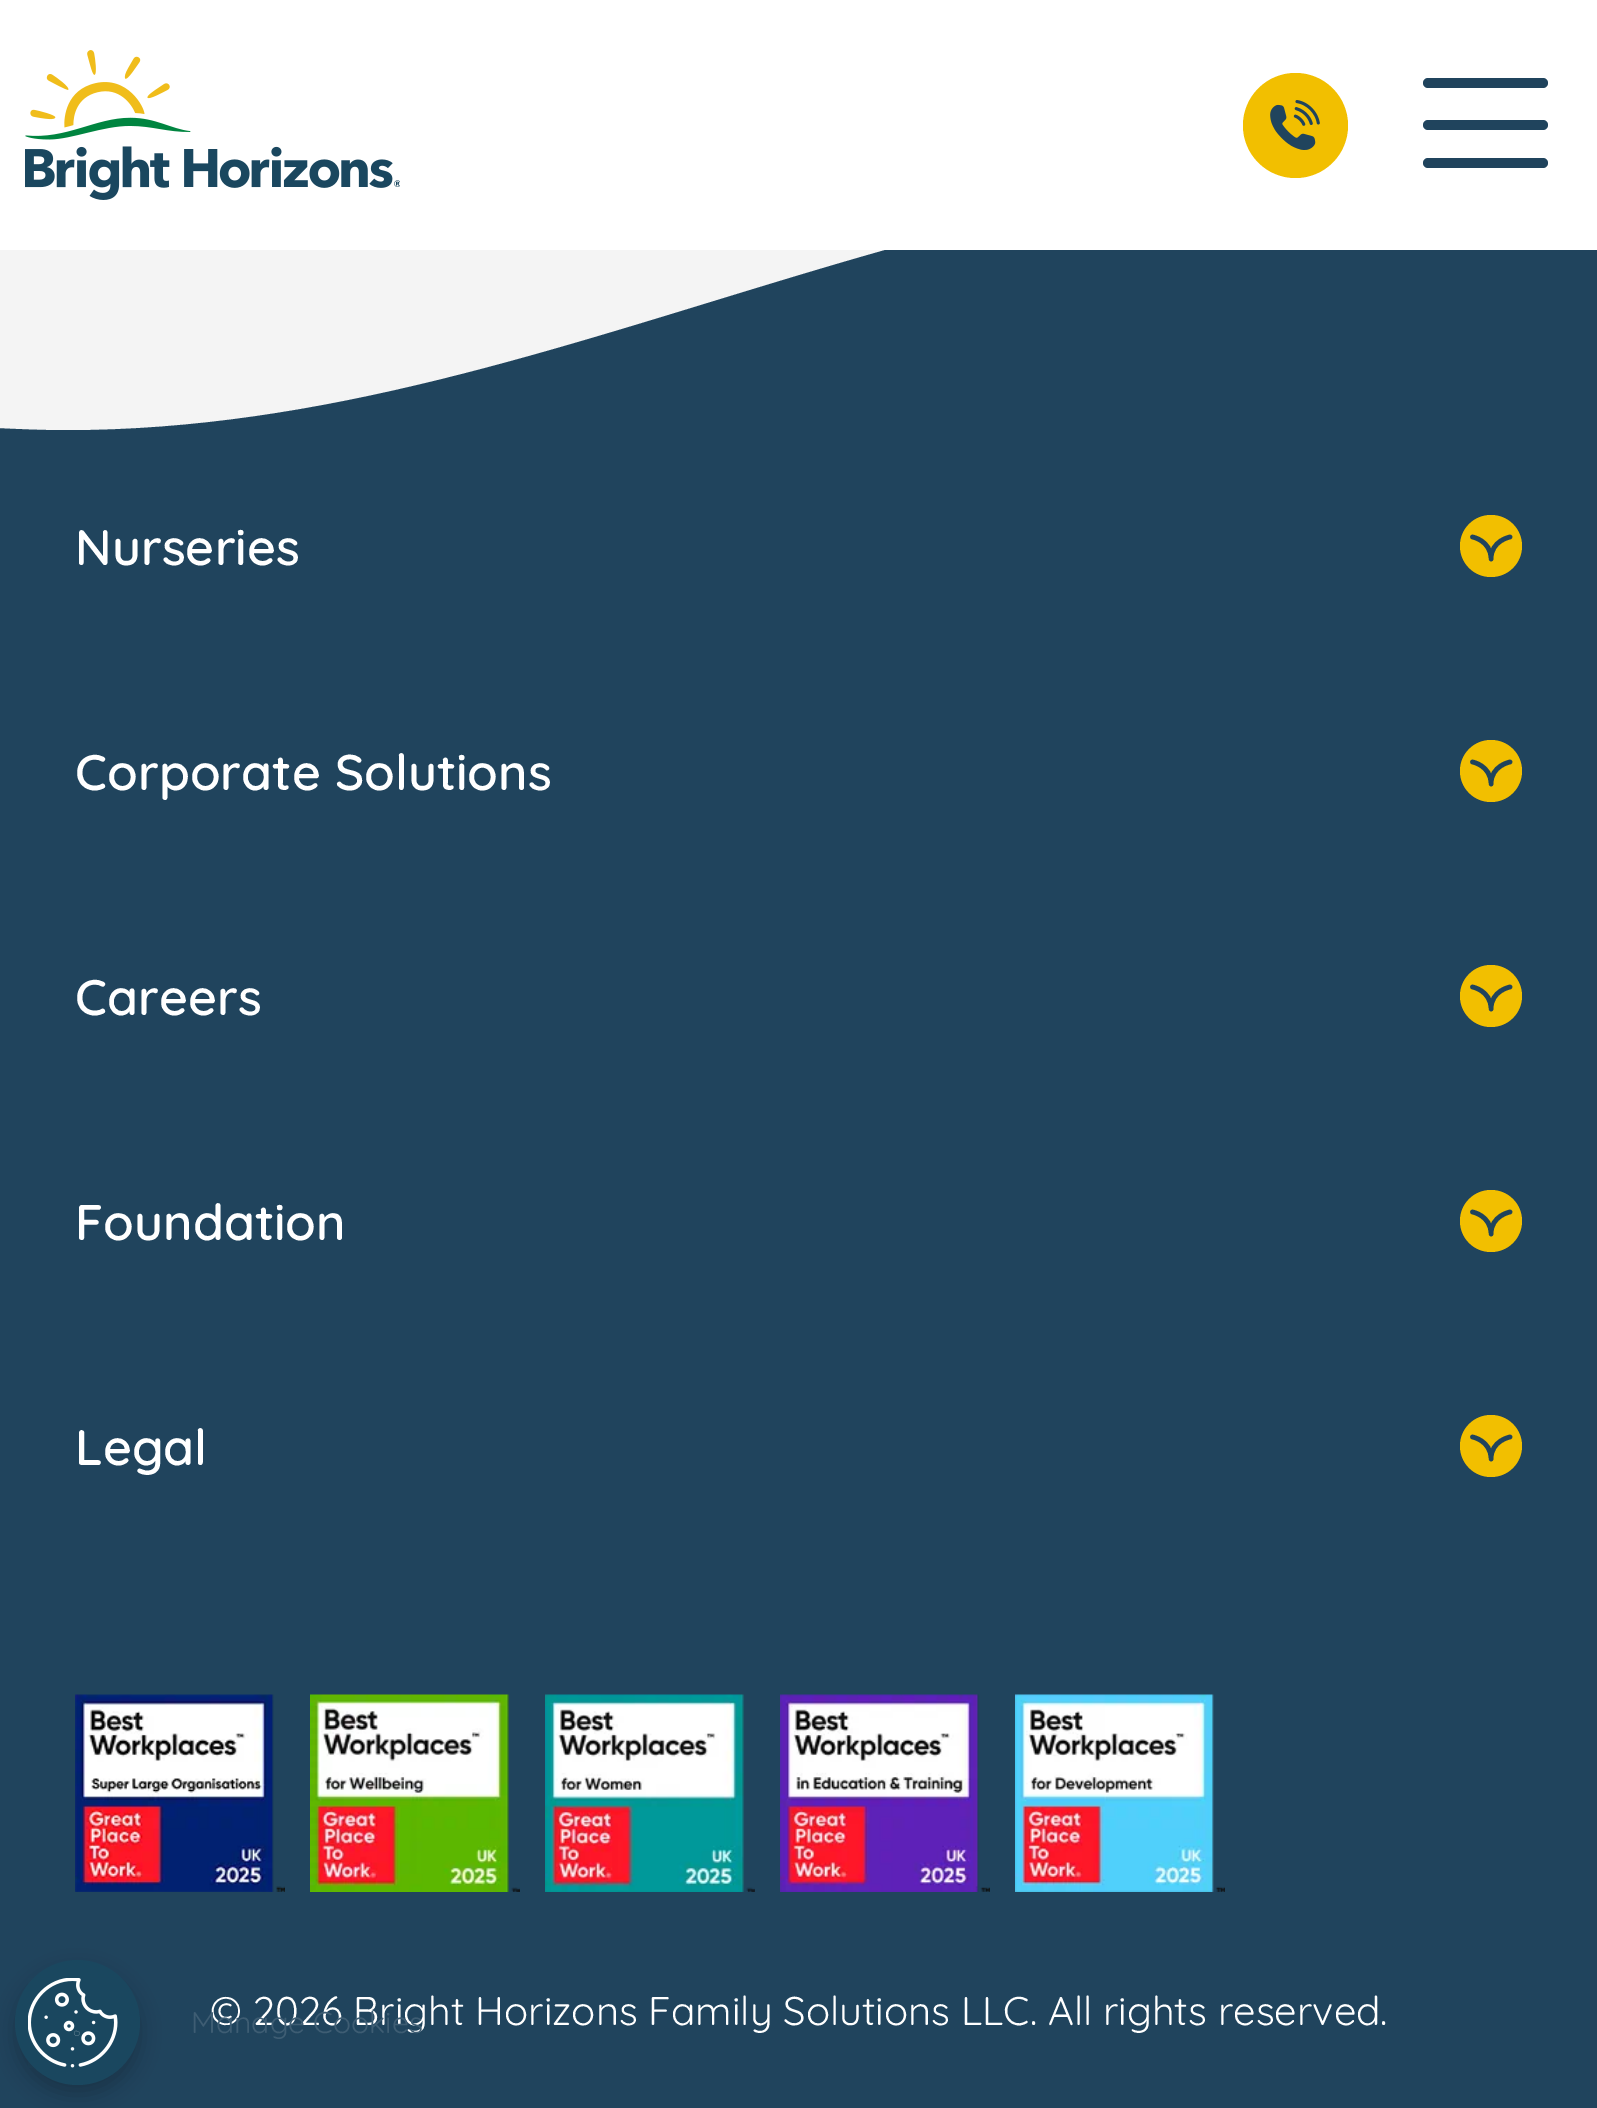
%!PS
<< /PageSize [1597 2108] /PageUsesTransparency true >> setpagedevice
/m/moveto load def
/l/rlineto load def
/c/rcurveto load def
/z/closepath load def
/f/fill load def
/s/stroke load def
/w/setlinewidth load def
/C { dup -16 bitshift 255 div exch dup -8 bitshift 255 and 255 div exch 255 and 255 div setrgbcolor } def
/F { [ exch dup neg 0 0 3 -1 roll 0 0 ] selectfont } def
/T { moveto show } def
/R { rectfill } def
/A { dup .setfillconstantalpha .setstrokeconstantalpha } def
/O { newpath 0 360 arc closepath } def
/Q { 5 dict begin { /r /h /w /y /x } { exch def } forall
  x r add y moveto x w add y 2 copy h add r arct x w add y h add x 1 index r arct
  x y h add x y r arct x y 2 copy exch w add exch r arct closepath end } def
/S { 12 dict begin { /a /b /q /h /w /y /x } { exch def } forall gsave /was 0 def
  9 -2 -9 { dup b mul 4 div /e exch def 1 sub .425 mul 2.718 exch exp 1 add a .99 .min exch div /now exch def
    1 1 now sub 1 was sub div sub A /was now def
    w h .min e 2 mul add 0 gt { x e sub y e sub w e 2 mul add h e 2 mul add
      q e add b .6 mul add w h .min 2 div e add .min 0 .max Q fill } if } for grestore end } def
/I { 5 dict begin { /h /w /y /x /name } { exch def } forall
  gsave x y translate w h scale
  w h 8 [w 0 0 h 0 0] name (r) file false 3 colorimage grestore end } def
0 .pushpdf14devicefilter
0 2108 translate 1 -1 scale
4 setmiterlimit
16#20445D C
0 0 1597 2108 R
16#F4F4F4 C
-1 428 m 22 1 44 2 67 2 c 514 0 930 -328 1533 -257 c 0 -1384 l -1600 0 l z f
16#FFFFFF C
0 0 1597 250 R
(1.rgb) 25 50 375 150 I
16#F2BF00 C
1295.5 125.5 52.5 O f
(2.rgb) 1270 100 50 50 I
16#20445D C
1423 78 125 10 5 Q f
1423 120 125 10 5 Q f
1423 158 125 10 5 Q f
/Quicksand-SemiBold 50 F
16#FFFFFF C
(Nurseries) 75 565 T
16#F2BF00 C
1491 546 31 O f
16#20445D C
4.6 w
1 setlinecap
1472.5 537 m 0 0 18.5 3.5 18.5 22 c 1510 537 m 0 0 -19 3.5 -19 22 c s
16#FFFFFF C
(Corporate Solutions) 75 790 T
16#F2BF00 C
1491 771 31 O f
16#20445D C
1472.5 762 m 0 0 18.5 3.5 18.5 22 c 1510 762 m 0 0 -19 3.5 -19 22 c s
16#FFFFFF C
(Careers) 75 1015 T
16#F2BF00 C
1491 996 31 O f
16#20445D C
1472.5 987 m 0 0 18.5 3.5 18.5 22 c 1510 987 m 0 0 -19 3.5 -19 22 c s
16#FFFFFF C
(Foundation) 75 1240 T
16#F2BF00 C
1491 1221 31 O f
16#20445D C
1472.5 1212 m 0 0 18.5 3.5 18.5 22 c 1510 1212 m 0 0 -19 3.5 -19 22 c s
16#FFFFFF C
(Legal) 75 1465 T
16#F2BF00 C
1491 1446 31 O f
16#20445D C
1472.5 1437 m 0 0 18.5 3.5 18.5 22 c 1510 1437 m 0 0 -19 3.5 -19 22 c s
(3.rgb) 75 1694 210 198 I
(4.rgb) 310 1694 210 198 I
(5.rgb) 545 1694 210 198 I
(6.rgb) 780 1694 210 198 I
(7.rgb) 1015 1694 210 198 I
/Quicksand-Regular 40 F
16#FFFFFF C
(© 2026 Bright Horizons Family Solutions LLC. All rights reserved.) 210 2025 T
16#000000 C
15 1970 125 125 62.5 10 .2 S
16#1A475F C
77.5 2022.5 62.5 O f
(8.rgb) 28 1978 90 90 I
/Quicksand-Regular 30 F
16#3E5D73 C
(Manage Cookies) 191 2033 T
.poppdf14devicefilter showpage
